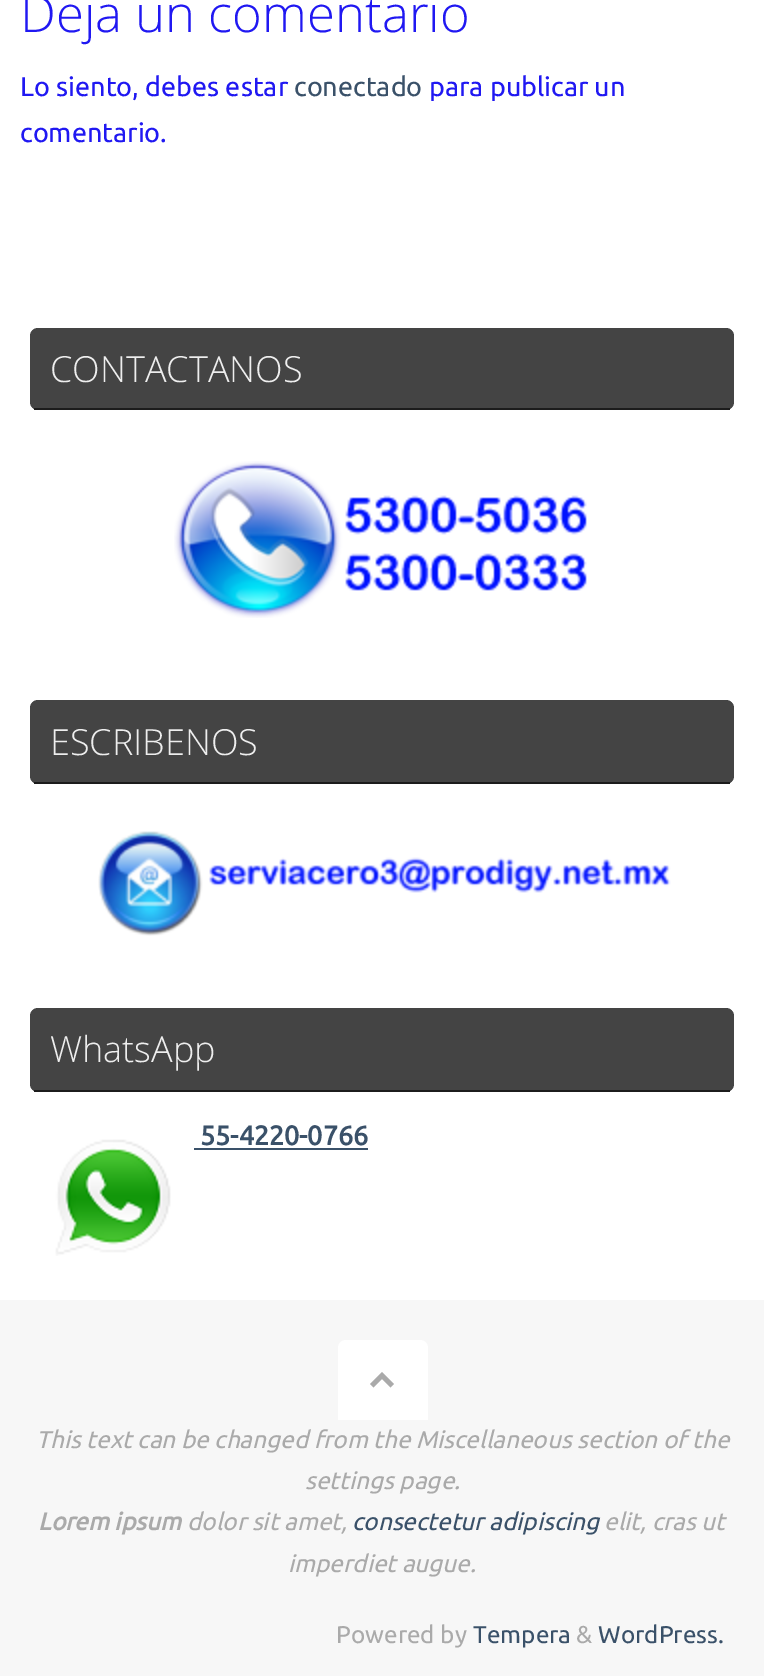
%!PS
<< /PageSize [764 1676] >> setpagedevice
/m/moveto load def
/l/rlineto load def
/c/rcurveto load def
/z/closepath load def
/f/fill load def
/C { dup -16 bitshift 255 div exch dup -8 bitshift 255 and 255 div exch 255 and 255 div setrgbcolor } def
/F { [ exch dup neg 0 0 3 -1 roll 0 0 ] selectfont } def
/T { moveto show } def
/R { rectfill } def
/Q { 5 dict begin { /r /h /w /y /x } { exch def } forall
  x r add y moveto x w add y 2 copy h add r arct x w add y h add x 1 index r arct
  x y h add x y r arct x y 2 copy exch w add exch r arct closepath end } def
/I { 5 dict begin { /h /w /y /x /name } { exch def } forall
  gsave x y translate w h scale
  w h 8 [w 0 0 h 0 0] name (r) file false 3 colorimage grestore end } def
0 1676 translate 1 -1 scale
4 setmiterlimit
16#FFFFFF C
0 0 764 1676 R
/OpenSans-Light 50.75 F
16#2018F2 C
(Deja un comentario) 20 32 T
/Ubuntu-Regular 27 F
(Lo siento, debes estar) 20 96 T
16#3A5169 C
(conectado) 294 96 T
16#2018F2 C
(para publicar un) 429 96 T
(comentario.) 20 142 T
16#444444 C
30 328 704 82 8 Q f
16#1C1C1C C
34 408 696 2 R
/OpenSans-Light 36 F
16#EEEEEE C
(CONTACTANOS) 50 382 T
(1.rgb) 174 461 413 157 I
16#444444 C
30 700 704 84 8 Q f
16#1C1C1C C
34 782 696 2 R
16#EEEEEE C
(ESCRIBENOS) 50 755 T
(2.rgb) 98 831 573 105 I
16#444444 C
30 1008 704 84 8 Q f
16#1C1C1C C
34 1090 696 2 R
16#EEEEEE C
(WhatsApp) 50 1062 T
/Ubuntu-Bold 27 F
16#3A5169 C
(55-4220-0766) 200 1145 T
194 1148 174 2 R
(3.rgb) 55 1139 116 117 I
16#F7F7F7 C
0 1300 764 376 R
16#FFFFFF C
346 1340 m 74 0 l 4.5 0 8 3.5 8 8 c 0 72 l -90 0 l 0 -72 l 0 -4.5 3.5 -8 8 -8 c z f
16#AAAAAA C
370 1384 m 12 -12 l 12 12 l -3.5 3.5 l -8.5 -8.5 l -8.5 8.5 l z f
/Ubuntu-Italic 24.3 F
(This text can be changed from the Miscellaneous section of the) 36 1448 T
(settings page.) 305 1489 T
/Ubuntu-BoldItalic 24.3 F
(Lorem ipsum) 38 1530 T
/Ubuntu-Italic 24.3 F
(dolor sit amet,) 187 1530 T
16#3A5169 C
(consectetur adipiscing) 352 1530 T
16#AAAAAA C
(elit, cras ut) 604 1530 T
(imperdiet augue.) 288 1572 T
/Ubuntu-Regular 24.3 F
(Powered by) 336 1643 T
16#3A5169 C
(Tempera) 473 1643 T
16#AAAAAA C
(&) 576 1643 T
16#3A5169 C
(WordPress.) 598 1643 T
showpage
